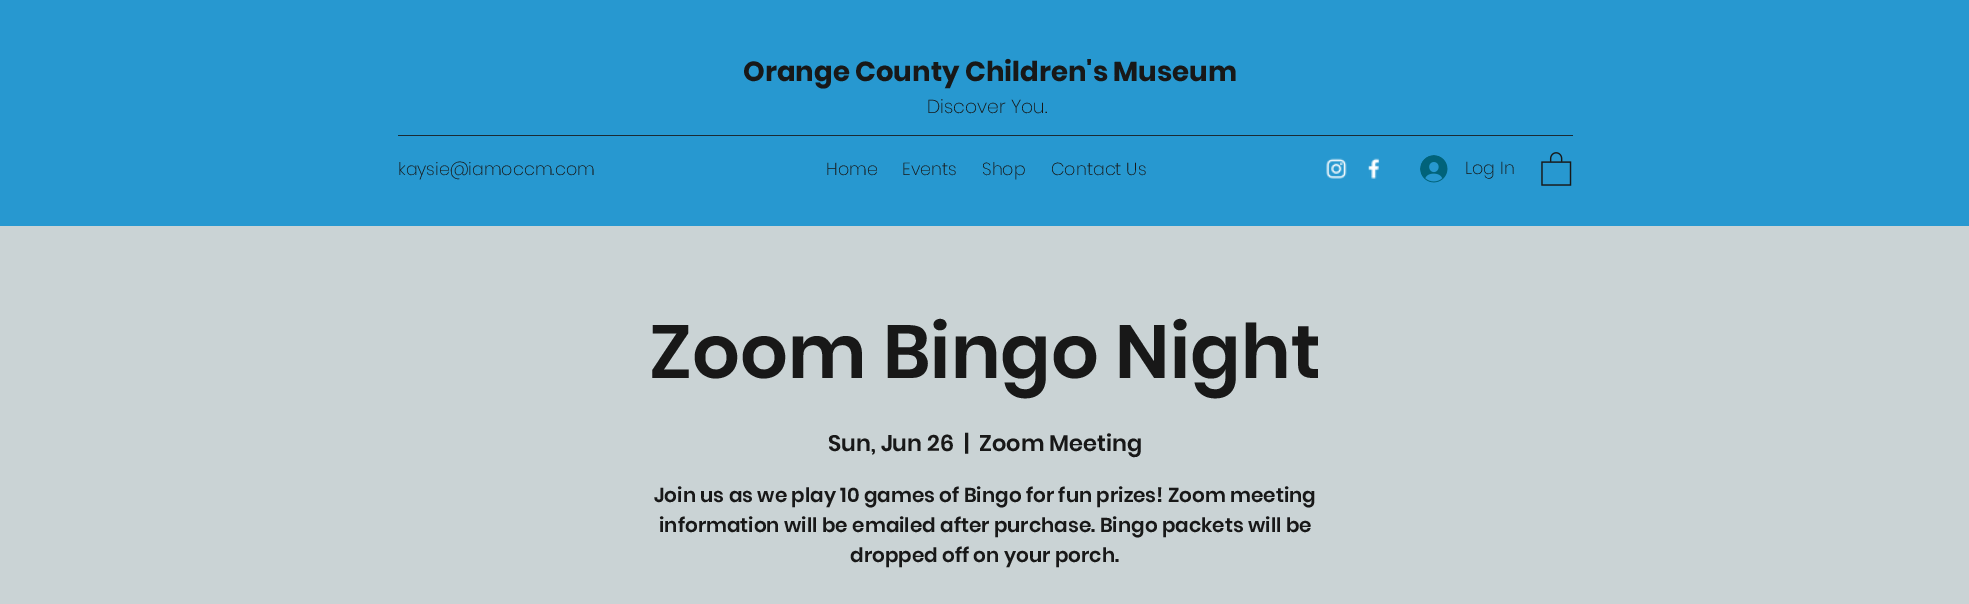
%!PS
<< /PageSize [1969 604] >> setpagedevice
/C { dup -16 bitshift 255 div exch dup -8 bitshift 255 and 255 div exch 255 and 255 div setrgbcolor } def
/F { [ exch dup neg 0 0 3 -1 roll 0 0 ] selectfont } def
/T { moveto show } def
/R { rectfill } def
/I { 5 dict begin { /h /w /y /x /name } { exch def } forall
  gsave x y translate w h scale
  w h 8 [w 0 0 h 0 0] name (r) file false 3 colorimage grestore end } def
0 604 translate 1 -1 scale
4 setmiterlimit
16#CAD3D5 C
0 0 1969 604 R
16#2798D0 C
0 0 1969 226 R
/Poppins-Bold 27.5 F
16#181818 C
(Orange County Children's Museum) 743 81 T
/Poppins-ExtraLight 18.75 F
(Discover You.) 927 113 T
16#1A2B34 C
398 135 1175 1 R
/Poppins-ExtraLight 17.5 F
16#181818 C
(kaysie@iamoccm.com) 398 175 T
(Home) 826 175 T
(Events) 902 175 T
(Shop) 982 175 T
(Contact Us) 1051 175 T
(1.rgb) 1326 158 21 21 I
(2.rgb) 1368 158 12 21 I
(3.rgb) 1420 155 28 28 I
(Log In) 1465 174 T
(4.rgb) 1541 152 31 34 I
/Poppins-SemiBold 75 F
(Zoom Bingo Night) 649 378 T
/Poppins-SemiBold 22.5 F
(Sun, Jun 26) 828 451 T
(|) 964 451 T
(Zoom Meeting) 979 451 T
/Poppins-SemiBold 20 F
(Join us as we play 10 games of Bingo for fun prizes! Zoom meeting) 654 502 T
(information will be emailed after purchase. Bingo packets will be) 659 532 T
(dropped off on your porch.) 850 562 T
showpage
